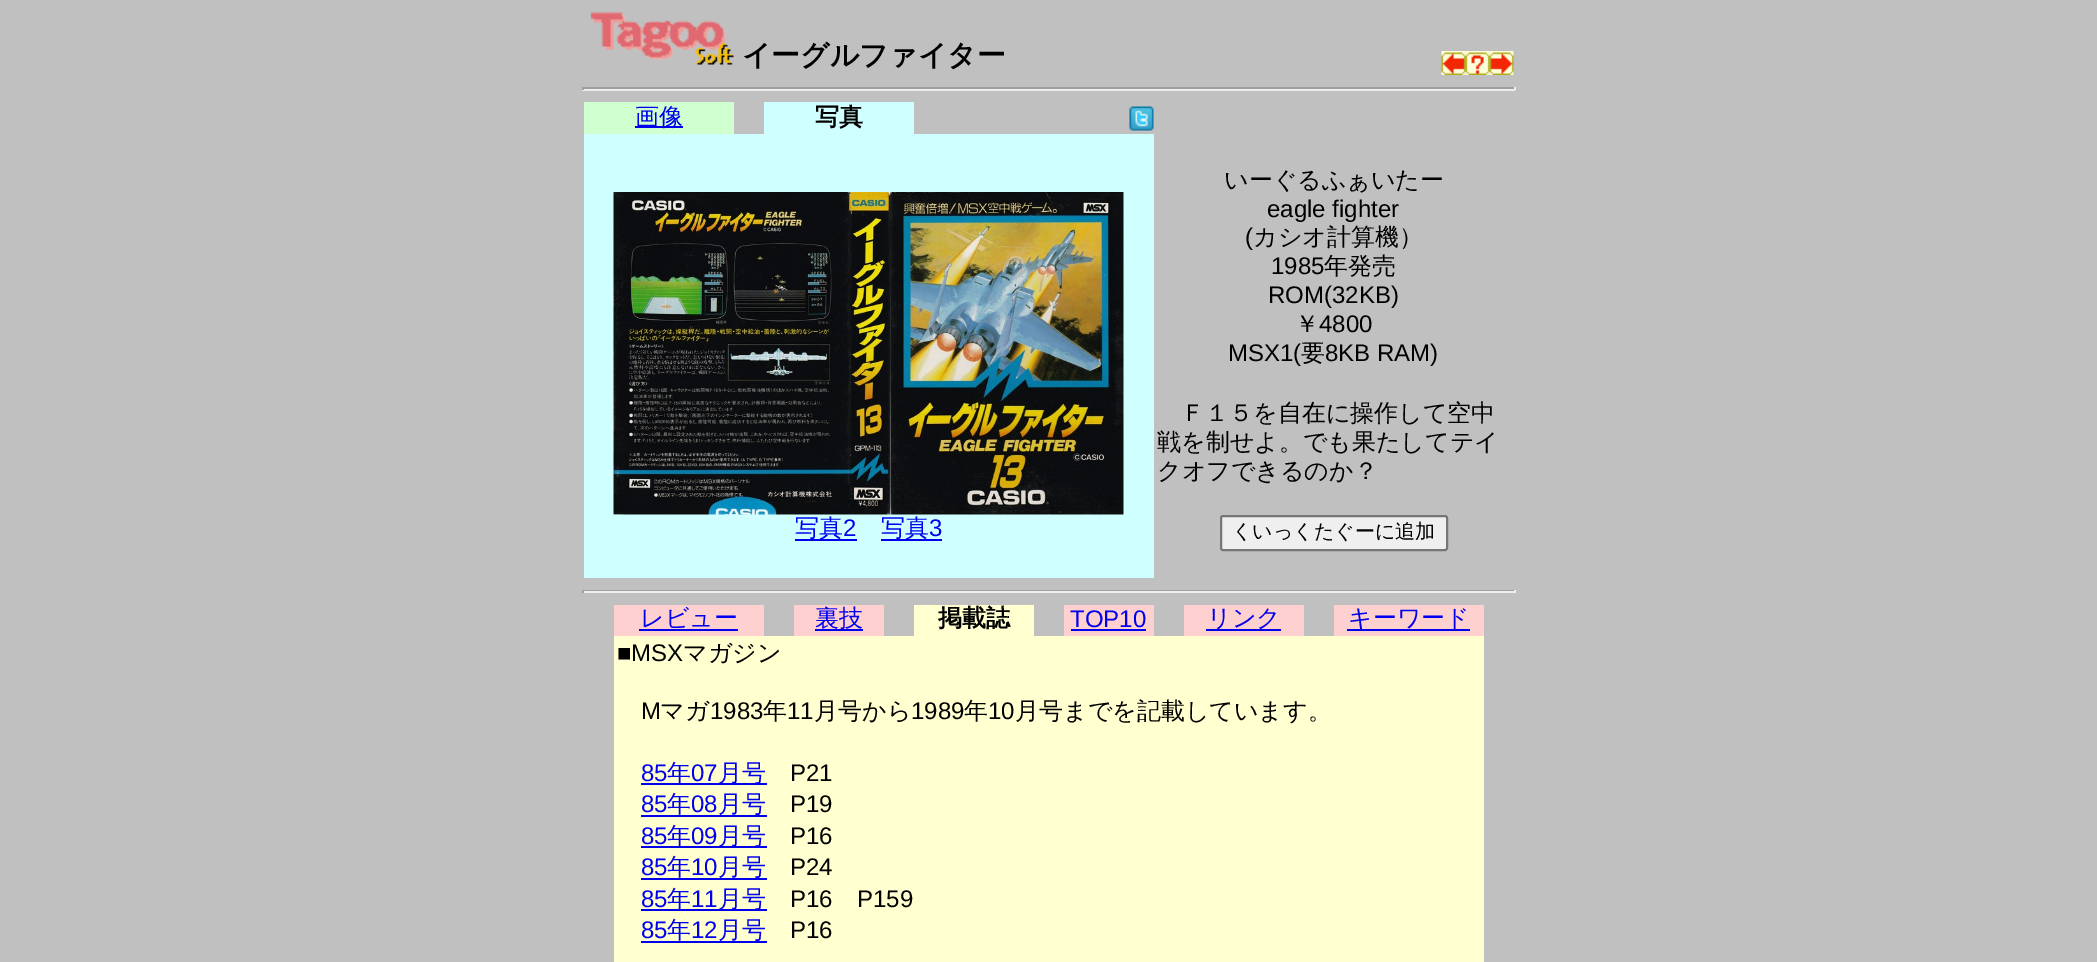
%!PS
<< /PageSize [2097 962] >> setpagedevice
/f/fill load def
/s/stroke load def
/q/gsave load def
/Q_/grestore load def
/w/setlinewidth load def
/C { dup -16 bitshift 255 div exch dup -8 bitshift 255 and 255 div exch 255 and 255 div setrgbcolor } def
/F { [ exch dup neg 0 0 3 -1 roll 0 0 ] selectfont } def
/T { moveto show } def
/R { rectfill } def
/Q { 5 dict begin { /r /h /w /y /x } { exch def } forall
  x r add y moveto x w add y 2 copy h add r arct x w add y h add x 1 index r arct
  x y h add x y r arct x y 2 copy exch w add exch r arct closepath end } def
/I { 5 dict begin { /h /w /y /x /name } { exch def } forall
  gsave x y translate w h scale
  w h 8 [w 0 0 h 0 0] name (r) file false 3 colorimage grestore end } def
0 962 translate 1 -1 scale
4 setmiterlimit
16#C0C0C0 C
0 0 2097 962 R
(1.rgb) 590 12 144 53 I
/WenQuanYiZenHei-Bold 28.75 F
16#000000 C
(イーグルファイター) 742 65 T
(2.rgb) 1441 51 25 24 I
(3.rgb) 1465 51 25 24 I
(4.rgb) 1489 51 25 24 I
16#9F9F9F C
582 87 933 2 R
16#EEEEEE C
1514 87 2 3 R
582 89 933 2 R
16#9F9F9F C
582 87 2 3 R
16#D0FFD0 C
584 102 150 32 R
16#0000EE C
635 126 48 2 R
/WenQuanYiZenHei-Medium 24 F
(画像) 635 125 T
16#D0FFFF C
764 102 150 32 R
/WenQuanYiZenHei-Bold 24 F
16#000000 C
(写真) 815 125 T
(5.rgb) 1129 106 25 25 I
16#D0FFFF C
584 134 570 444 R
(6.rgb) 613 192 511 323 I
16#0000EE C
795 539 62 2 R
/WenQuanYiZenHei-Medium 24 F
(写真) 795 536 T
/LiberationSans-Regular 24 F
(2) 843 536 T
881 539 61 2 R
/WenQuanYiZenHei-Medium 24 F
(写真) 881 536 T
/LiberationSans-Regular 24 F
(3) 929 536 T
/WenQuanYiZenHei-Medium 24 F
16#000000 C
(いーぐるふぁいたー) 1224 188 T
/LiberationSans-Regular 24 F
(eagle fighter) 1267 217 T
(\() 1245 245 T
/WenQuanYiZenHei-Medium 24 F
(カシオ計算機）) 1253 245 T
/LiberationSans-Regular 24 F
(1985) 1271 274 T
/WenQuanYiZenHei-Medium 24 F
(年発売) 1324 274 T
/LiberationSans-Regular 24 F
(ROM\(32KB\)) 1268 303 T
/WenQuanYiZenHei-Medium 24 F
(￥) 1295 332 T
/LiberationSans-Regular 24 F
(4800) 1319 332 T
(MSX1\() 1228 361 T
/WenQuanYiZenHei-Medium 24 F
(要) 1301 361 T
/LiberationSans-Regular 24 F
(8KB RAM\)) 1325 361 T
/WenQuanYiZenHei-Medium 24 F
(Ｆ１５を自在に操作して空中) 1181 421 T
(戦を制せよ。でも果たしてテイ) 1157 450 T
(クオフできるのか？) 1157 479 T
16#EFEFEF C
1221 516 226 34 2 Q q f Q_
16#767676 C
2 w
s
/WenQuanYiZenHei-Medium 20 F
16#000000 C
(くいっくたぐーに追加) 1232 538 T
16#9F9F9F C
582 590 933 1 R
16#EEEEEE C
1514 590 2 3 R
582 591 933 2 R
16#9F9F9F C
582 590 2 3 R
16#FFD0D0 C
614 605 150 31 R
/WenQuanYiZenHei-Medium 24 F
16#0000EE C
(レビュー) 640 626 T
639 629 99 2 R
16#FFD0D0 C
794 605 90 31 R
16#0000EE C
815 629 48 2 R
(裏技) 815 626 T
16#FFFFD0 C
914 605 120 31 R
/WenQuanYiZenHei-Bold 24 F
16#000000 C
(掲載誌) 938 626 T
16#FFD0D0 C
1064 605 90 31 R
/LiberationSans-Regular 24 F
16#0000EE C
(TOP10) 1070 627 T
1071 629 75 2 R
16#FFD0D0 C
1184 605 120 31 R
16#0000EE C
1206 629 75 2 R
/WenQuanYiZenHei-Medium 24 F
(リンク) 1207 626 T
16#FFD0D0 C
1334 605 150 31 R
16#0000EE C
1347 629 123 2 R
(キーワード) 1348 626 T
16#FFFFD0 C
614 636 870 326 R
/LiberationSans-Regular 24 F
16#000000 C
(■MSX) 617 661 T
/WenQuanYiZenHei-Medium 24 F
(マガジン) 683 661 T
/LiberationSans-Regular 24 F
(M) 641 719 T
/WenQuanYiZenHei-Medium 24 F
(マガ) 660 719 T
/LiberationSans-Regular 24 F
(1983) 710 719 T
/WenQuanYiZenHei-Medium 24 F
(年) 763 719 T
/LiberationSans-Regular 24 F
(11) 787 719 T
/WenQuanYiZenHei-Medium 24 F
(月号から) 814 719 T
/LiberationSans-Regular 24 F
(1989) 911 719 T
/WenQuanYiZenHei-Medium 24 F
(年) 964 719 T
/LiberationSans-Regular 24 F
(10) 988 719 T
/WenQuanYiZenHei-Medium 24 F
(月号までを記載しています。) 1015 719 T
/LiberationSans-Regular 24 F
16#0000EE C
(85) 641 781 T
641 783 126 2 R
/WenQuanYiZenHei-Medium 24 F
(年) 667 781 T
/LiberationSans-Regular 24 F
(07) 691 781 T
/WenQuanYiZenHei-Medium 24 F
(月号) 718 781 T
/LiberationSans-Regular 24 F
16#000000 C
(P21) 790 781 T
16#0000EE C
(85) 641 812 T
/WenQuanYiZenHei-Medium 24 F
(年) 667 812 T
/LiberationSans-Regular 24 F
(08) 691 812 T
641 815 126 2 R
/WenQuanYiZenHei-Medium 24 F
(月号) 718 812 T
/LiberationSans-Regular 24 F
16#000000 C
(P19) 790 812 T
16#0000EE C
(85) 641 844 T
641 846 126 2 R
/WenQuanYiZenHei-Medium 24 F
(年) 667 844 T
/LiberationSans-Regular 24 F
(09) 691 844 T
/WenQuanYiZenHei-Medium 24 F
(月号) 718 844 T
/LiberationSans-Regular 24 F
16#000000 C
(P16) 790 844 T
16#0000EE C
(85) 641 875 T
/WenQuanYiZenHei-Medium 24 F
(年) 667 875 T
/LiberationSans-Regular 24 F
(10) 691 875 T
641 878 126 2 R
/WenQuanYiZenHei-Medium 24 F
(月号) 718 875 T
/LiberationSans-Regular 24 F
16#000000 C
(P24) 790 875 T
16#0000EE C
(85) 641 907 T
641 909 126 2 R
/WenQuanYiZenHei-Medium 24 F
(年) 667 907 T
/LiberationSans-Regular 24 F
(11) 691 907 T
/WenQuanYiZenHei-Medium 24 F
(月号) 718 907 T
/LiberationSans-Regular 24 F
16#000000 C
(P16) 790 907 T
(P159) 857 907 T
16#0000EE C
(85) 641 938 T
/WenQuanYiZenHei-Medium 24 F
(年) 667 938 T
/LiberationSans-Regular 24 F
(12) 691 938 T
641 941 126 2 R
/WenQuanYiZenHei-Medium 24 F
(月号) 718 938 T
/LiberationSans-Regular 24 F
16#000000 C
(P16) 790 938 T
showpage
